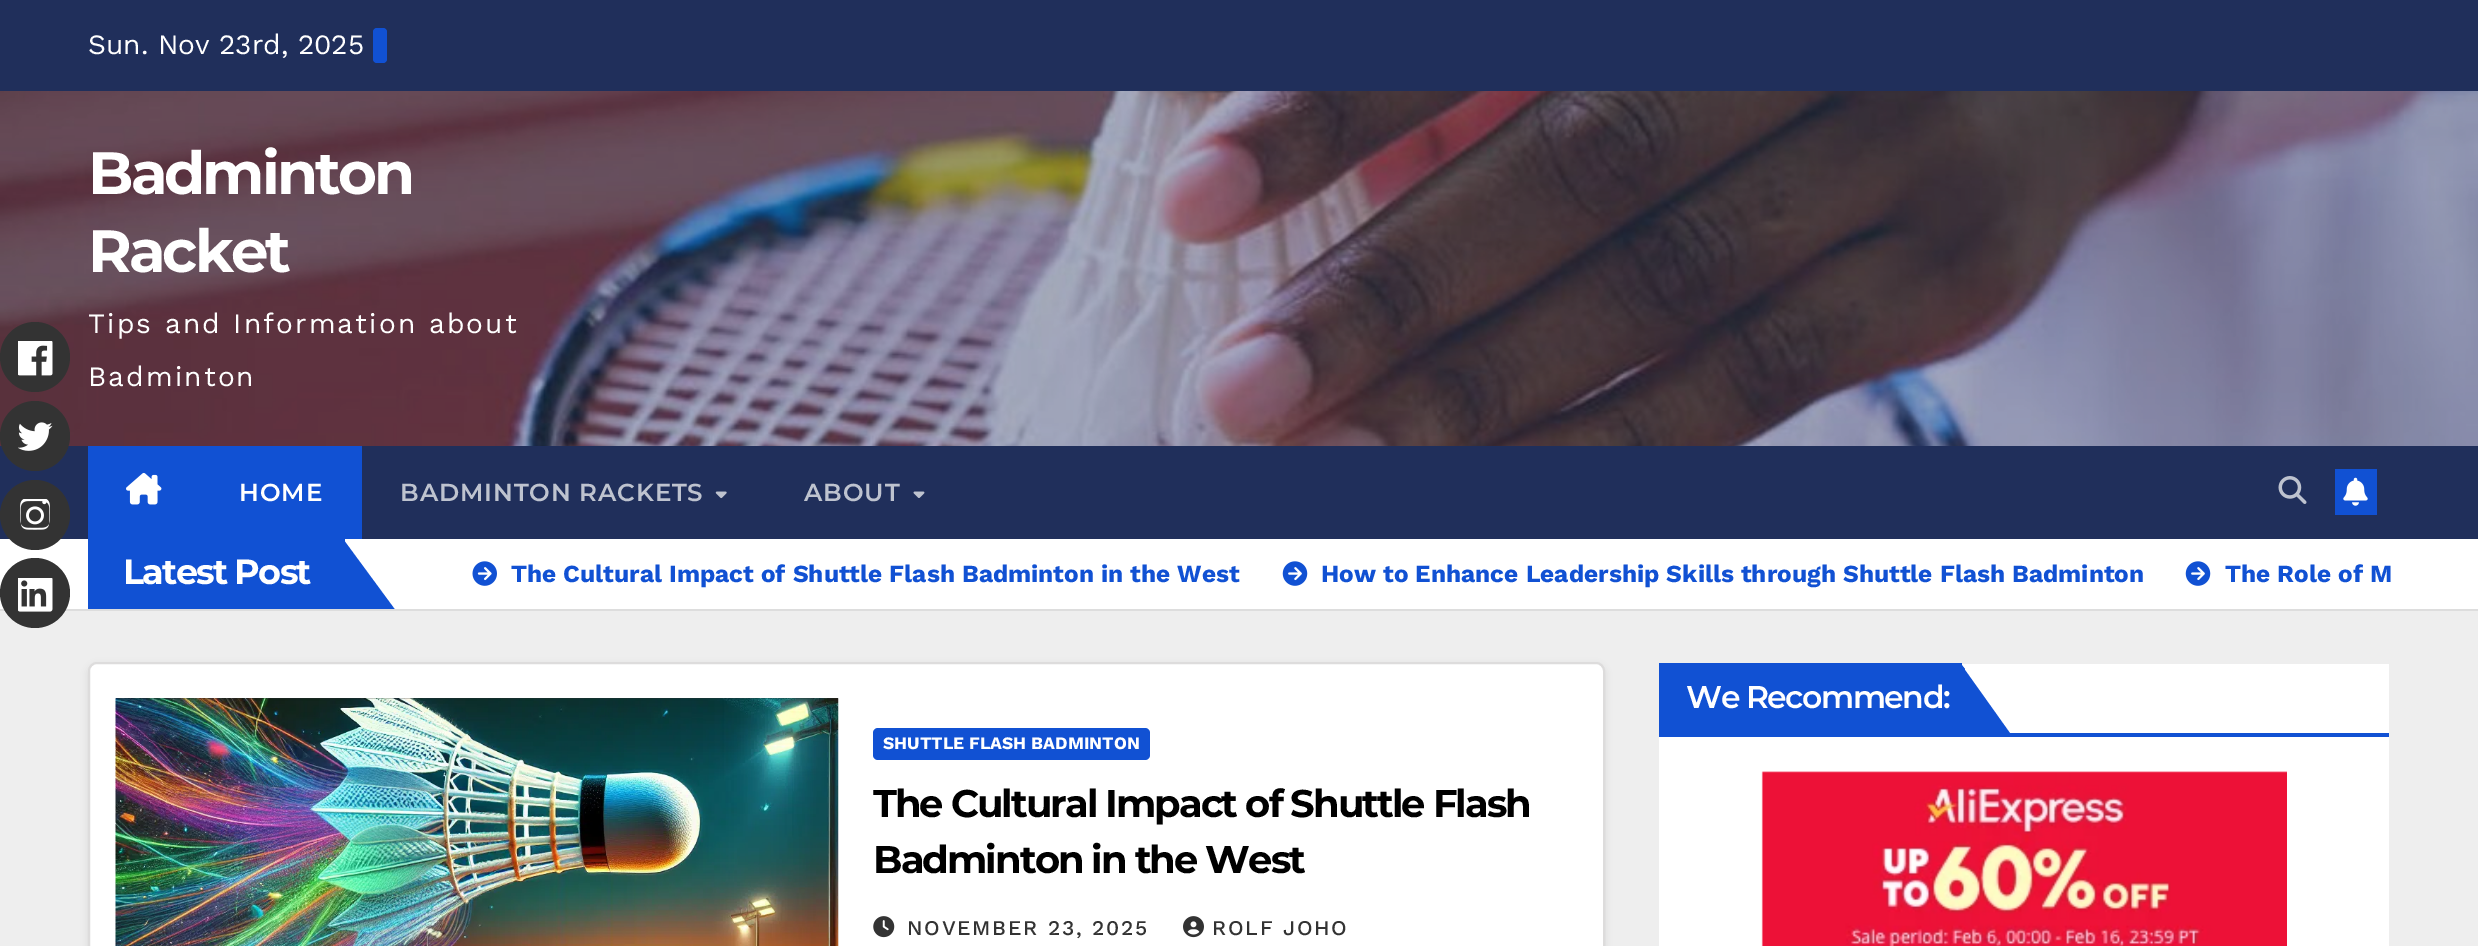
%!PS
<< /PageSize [2478 946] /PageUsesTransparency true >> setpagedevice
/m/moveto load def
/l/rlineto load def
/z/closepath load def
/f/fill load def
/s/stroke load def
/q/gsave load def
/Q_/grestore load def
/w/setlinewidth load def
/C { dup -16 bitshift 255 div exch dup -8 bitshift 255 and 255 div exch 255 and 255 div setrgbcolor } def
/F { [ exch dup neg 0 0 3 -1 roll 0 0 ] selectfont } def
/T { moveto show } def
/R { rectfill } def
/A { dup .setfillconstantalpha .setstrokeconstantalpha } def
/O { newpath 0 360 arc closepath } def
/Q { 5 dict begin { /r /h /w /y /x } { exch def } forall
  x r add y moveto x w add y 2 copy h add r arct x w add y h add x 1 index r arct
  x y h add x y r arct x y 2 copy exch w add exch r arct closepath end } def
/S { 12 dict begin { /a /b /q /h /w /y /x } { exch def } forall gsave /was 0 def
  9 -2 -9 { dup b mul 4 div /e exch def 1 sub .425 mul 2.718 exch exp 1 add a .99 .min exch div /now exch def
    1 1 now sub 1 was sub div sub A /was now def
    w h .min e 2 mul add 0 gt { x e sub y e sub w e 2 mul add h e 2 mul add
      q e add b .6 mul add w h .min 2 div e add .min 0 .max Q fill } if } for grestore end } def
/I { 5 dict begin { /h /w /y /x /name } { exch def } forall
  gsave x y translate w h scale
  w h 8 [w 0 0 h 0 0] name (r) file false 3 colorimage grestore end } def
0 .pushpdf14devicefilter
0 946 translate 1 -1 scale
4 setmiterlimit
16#EEEEEE C
0 0 2478 946 R
(5.rgb) 0 91 2478 355 I
16#333333 C
35 357 35 O f
(1.rgb) 18 341 35 35 I
16#202F5B C
0 446 2478 93 R
16#333333 C
35 436 35 O f
(2.rgb) 18 422 35 29 I
16#FFFFFF C
0 539 2478 70 R
16#333333 C
35 515 35 O f
(3.rgb) 20 499 30 31 I
16#DDDDDD C
0 609 2478 2 R
16#333333 C
35 593 35 O f
(4.rgb) 18 578 35 34 I
16#202F5B C
0 0 2478 91 R
/WorkSans-Regular 28 F
16#FFFFFF C
(Sun. Nov 23rd, 2025) 88 54 T
16#1151D3 C
373 28 14 35 4 Q f
/Montserrat-Bold 59.5 F
16#FFFFFF C
88 194 m -3 0 (Badminton) ashow
88 272 m -3 0 (Racket) ashow
/WorkSans-Regular 28 F
88 333 m 2.1 0 (Tips and Information about) ashow
88 386 m 2.1 0 (Badminton) ashow
16#1151D3 C
88 446 274 93 R
(6.rgb) 126 472 36 33 I
/Montserrat-SemiBold 24.5 F
16#FFFFFF C
239 501 m .9 0 (HOME) ashow
16#BEC3CF C
400 501 m .9 0 (BADMINTON RACKETS) ashow
(7.rgb) 715 491 12 8 I
804 501 m .9 0 (ABOUT) ashow
(8.rgb) 913 491 12 7 I
(9.rgb) 2278 476 29 28 I
16#1151D3 C
2335 469 42 46 R
(10.rgb) 2343 477 25 29 I
88 539 257 70 R
/Montserrat-Bold 35 F
16#FFFFFF C
123 584 m -1.75 0 (Latest Post) ashow
q
88 539 2303 70 rectclip
16#1151D3 C
343 611 m 0 -72 l 53 72 l z f
Q_
(11.rgb) 472 561 25 25 I
/WorkSans-Bold 24.5 F
16#1151D3 C
(The Cultural Impact of Shuttle Flash Badminton in the West) 511 582 T
(12.rgb) 1282 561 26 25 I
(How to Enhance Leadership Skills through Shuttle Flash Badminton) 1321 582 T
(12.rgb) 2185 561 26 25 I
(The Role of M) 2225 582 T
16#FFFFFF C
1659 664 730 282 R
16#1151D3 C
1659 733 730 4 R
1659 663 303 70 R
/Montserrat-SemiBold 31.5 F
16#FFFFFF C
1686 708 m -1.5 0 (We Recommend:) ashow
16#1151D3 C
1960 663 m 0 73 l 52 0 l z f
1961 664 m -1 -1 l 0 73 l 1 0 l 4 -4 l 0 -63 l z f
(13.rgb) 1761 771 526 175 I
16#000000 C
88 665 1517 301 9 3.5 .08 S
16#FFFFFF C
89 663 1515 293 8 Q q f Q_
16#DDDCDC C
2 w
s
(14.rgb) 115 698 724 248 I
16#1151D3 C
873 728 277 32 5 Q f
/WorkSans-Bold 17.5 F
16#FFFFFF C
(SHUTTLE FLASH BADMINTON) 883 749 T
q
873 777 704 112 rectclip
/Montserrat-Bold 38.5 F
16#000000 C
873 817 m -1.95 0 (The Cultural Impact of Shuttle Flash) ashow
Q_
/Montserrat-Bold 38.5 F
16#000000 C
873 873 m -1.95 0 (Badminton in the West) ashow
(15.rgb) 873 916 22 22 I
/WorkSans-Medium 21 F
16#333333 C
907 935 m 1.75 0 (NOVEMBER 23, 2025) ashow
(16.rgb) 1183 916 21 22 I
1212 935 m 1.75 0 (ROLF JOHO) ashow
.poppdf14devicefilter showpage
